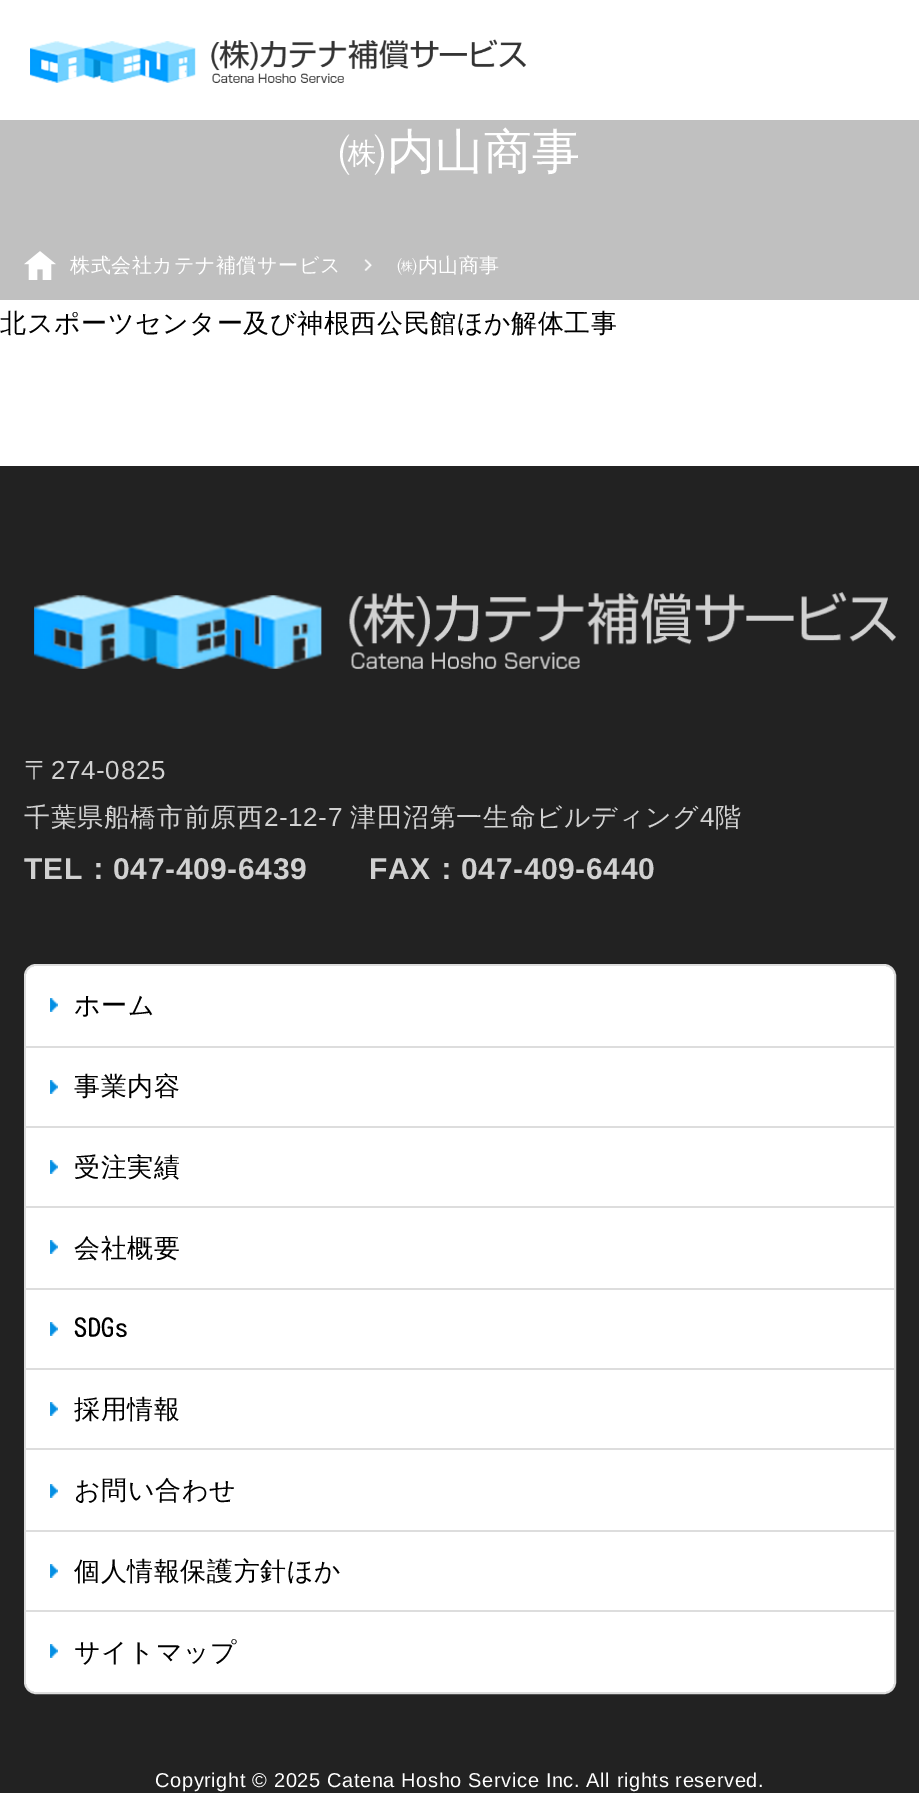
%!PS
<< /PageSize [919 1793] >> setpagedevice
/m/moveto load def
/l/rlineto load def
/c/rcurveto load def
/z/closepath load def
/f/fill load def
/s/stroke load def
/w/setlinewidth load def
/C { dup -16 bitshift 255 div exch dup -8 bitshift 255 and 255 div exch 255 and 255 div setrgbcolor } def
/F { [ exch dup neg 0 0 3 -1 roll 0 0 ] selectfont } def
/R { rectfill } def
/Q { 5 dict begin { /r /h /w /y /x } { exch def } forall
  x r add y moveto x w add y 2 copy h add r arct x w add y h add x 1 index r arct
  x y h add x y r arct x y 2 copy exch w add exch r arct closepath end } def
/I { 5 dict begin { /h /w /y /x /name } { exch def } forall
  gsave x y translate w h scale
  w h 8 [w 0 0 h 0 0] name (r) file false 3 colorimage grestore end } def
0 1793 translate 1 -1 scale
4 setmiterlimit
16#FFFFFF C
0 0 919 1793 R
(1.rgb) 30 39 496 44 I
16#C0C0C0 C
0 120 919 180 R
/WenQuanYiZenHei-Medium 48 F
16#FFFFFF C
338 168 m .62 0 (㈱内山商事) ashow
(2.rgb) 24 251 32 29 I
(3.rgb) 364 259 8 12 I
/WenQuanYiZenHei-Medium 20 F
70 272 m .62 0 (株式会社カテナ補償サービス) ashow
397 272 m .62 0 (㈱内山商事) ashow
/WenQuanYiZenHei-Medium 26 F
16#000000 C
0 332 m .62 0 (北スポーツセンター及び神根西公民館ほか解体工事) ashow
16#222222 C
0 466 919 1327 R
(4.rgb) 34 592 862 77 I
16#D1D1D1 C
24 779 m .62 0 (〒) ashow
/LiberationSans-Regular 26 F
51 779 m .62 0 (274-0825) ashow
/WenQuanYiZenHei-Medium 26 F
24 826 m .62 0 (千葉県船橋市前原西) ashow
/LiberationSans-Regular 26 F
264 826 m .62 0 (2-12-7) ashow
/WenQuanYiZenHei-Medium 26 F
350 826 m .62 0 (津田沼第一生命ビルディング) ashow
/LiberationSans-Regular 26 F
700 826 m .62 0 (4) ashow
/WenQuanYiZenHei-Medium 26 F
715 826 m .62 0 (階) ashow
/LiberationSans-Bold 30 F
24 879 m .62 0 (TEL) ashow
/WenQuanYiZenHei-Bold 30 F
83 879 m .62 0 (：) ashow
/LiberationSans-Bold 30 F
113 879 m .62 0 (047-409-6439) ashow
369 879 m .62 0 (FAX) ashow
/WenQuanYiZenHei-Bold 30 F
431 879 m .62 0 (：) ashow
/LiberationSans-Bold 30 F
461 879 m .62 0 (047-409-6440) ashow
16#DDDDDD C
2 w
25 965 870 728 11 Q s
26 1046 868 2 R
16#FFFFFF C
36 966 m 848 0 l 5.5 0 10 4.5 10 10 c 0 70 l -868 0 l 0 -70 l 0 -5.5 4.5 -10 10 -10 c z f
(5.rgb) 50 998 8 14 I
/WenQuanYiZenHei-Medium 26 F
16#000000 C
74 1014 m .62 0 (ホーム) ashow
16#DDDDDD C
26 1126 868 2 R
16#FFFFFF C
26 1048 868 78 R
(5.rgb) 50 1080 8 14 I
16#000000 C
74 1095 m .62 0 (事業内容) ashow
16#DDDDDD C
26 1206 868 2 R
16#FFFFFF C
26 1128 868 78 R
(5.rgb) 50 1160 8 14 I
16#000000 C
74 1176 m .62 0 (受注実績) ashow
16#DDDDDD C
26 1288 868 2 R
16#FFFFFF C
26 1208 868 80 R
(5.rgb) 50 1240 8 14 I
16#000000 C
74 1257 m .62 0 (会社概要) ashow
16#DDDDDD C
26 1368 868 2 R
16#FFFFFF C
26 1290 868 78 R
(5.rgb) 50 1322 8 14 I
/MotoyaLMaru-Regular 26 F
16#000000 C
74 1337 m .62 0 (SDGs) ashow
16#DDDDDD C
26 1448 868 2 R
16#FFFFFF C
26 1370 868 78 R
(5.rgb) 50 1402 8 14 I
/WenQuanYiZenHei-Medium 26 F
16#000000 C
74 1418 m .62 0 (採用情報) ashow
16#DDDDDD C
26 1530 868 2 R
16#FFFFFF C
26 1450 868 80 R
(5.rgb) 50 1484 8 14 I
16#000000 C
74 1499 m .62 0 (お問い合わせ) ashow
16#DDDDDD C
26 1610 868 2 R
16#FFFFFF C
26 1532 868 78 R
(5.rgb) 50 1564 8 14 I
16#000000 C
74 1580 m .62 0 (個人情報保護方針ほか) ashow
16#FFFFFF C
26 1612 m 868 0 l 0 70 l 0 5.5 -4.5 10 -10 10 c -848 0 l -5.5 0 -10 -4.5 -10 -10 c z f
(5.rgb) 50 1644 8 14 I
16#000000 C
74 1661 m .62 0 (サイトマップ) ashow
/LiberationSans-Regular 20 F
16#FFFFFF C
155 1787 m .62 0 (Copyright © 2025 Catena Hosho Service Inc. All rights reserved.) ashow
showpage
